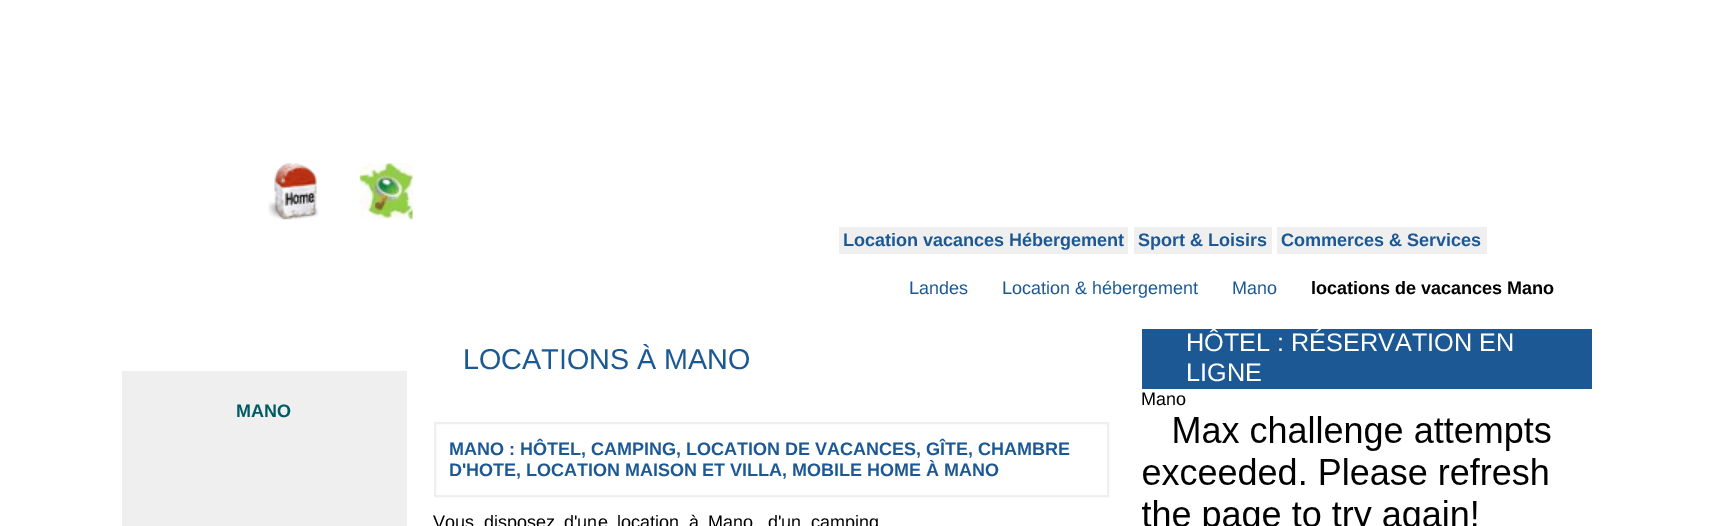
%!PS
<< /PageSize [1711 526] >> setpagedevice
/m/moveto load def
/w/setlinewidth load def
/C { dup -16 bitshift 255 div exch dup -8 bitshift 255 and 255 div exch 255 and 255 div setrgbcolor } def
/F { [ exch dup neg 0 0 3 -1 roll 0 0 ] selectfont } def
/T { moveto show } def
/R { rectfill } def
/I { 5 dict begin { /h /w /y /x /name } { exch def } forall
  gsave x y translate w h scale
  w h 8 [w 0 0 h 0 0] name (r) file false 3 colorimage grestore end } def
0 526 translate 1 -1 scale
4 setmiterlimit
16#FFFFFF C
0 0 1711 526 R
(1.rgb) 268 163 51 57 I
(2.rgb) 359 163 54 57 I
16#F0EFEF C
839 227 289 27 R
/LiberationSans-Bold 18 F
16#1C5894 C
(Location vacances Hébergement) 843 246 T
16#F0EFEF C
1134 227 138 27 R
16#1C5894 C
(Sport & Loisirs) 1138 246 T
16#F0EFEF C
1277 227 210 27 R
16#1C5894 C
(Commerces & Services) 1281 246 T
/LiberationSans-Regular 18 F
(Landes) 909 294 T
(Location & hébergement) 1002 294 T
(Mano) 1232 294 T
/LiberationSans-Bold 18 F
16#000000 C
(locations de vacances Mano) 1311 294 T
16#F0EFEF C
122 371 285 155 R
16#005A64 C
(MANO) 236 417 T
/LiberationSans-Regular 28.75 F
16#1C5894 C
(LOCATIONS À MANO) 463 369 T
16#F0EFEF C
2 w
435 423 673 73 rectstroke
/LiberationSans-Bold 18 F
16#1C5894 C
(MANO : HÔTEL, CAMPING, LOCATION DE VACANCES, GÎTE, CHAMBRE) 449 455 T
(D'HOTE, LOCATION MAISON ET VILLA, MOBILE HOME À MANO) 449 476 T
/LiberationSans-Regular 18 F
16#000000 C
433 528 m 4.5 0 32 (Vous disposez d'une location à Mano, d'un camping) widthshow
16#1C5894 C
1142 329 450 60 R
/LiberationSans-Regular 25.25 F
16#FFFFFF C
(HÔTEL : RÉSERVATION EN) 1186 351 T
(LIGNE) 1186 381 T
/LiberationSans-Regular 18 F
16#000000 C
(Mano) 1141 405 T
(3.rgb) 1142 416 409 110 I
showpage
